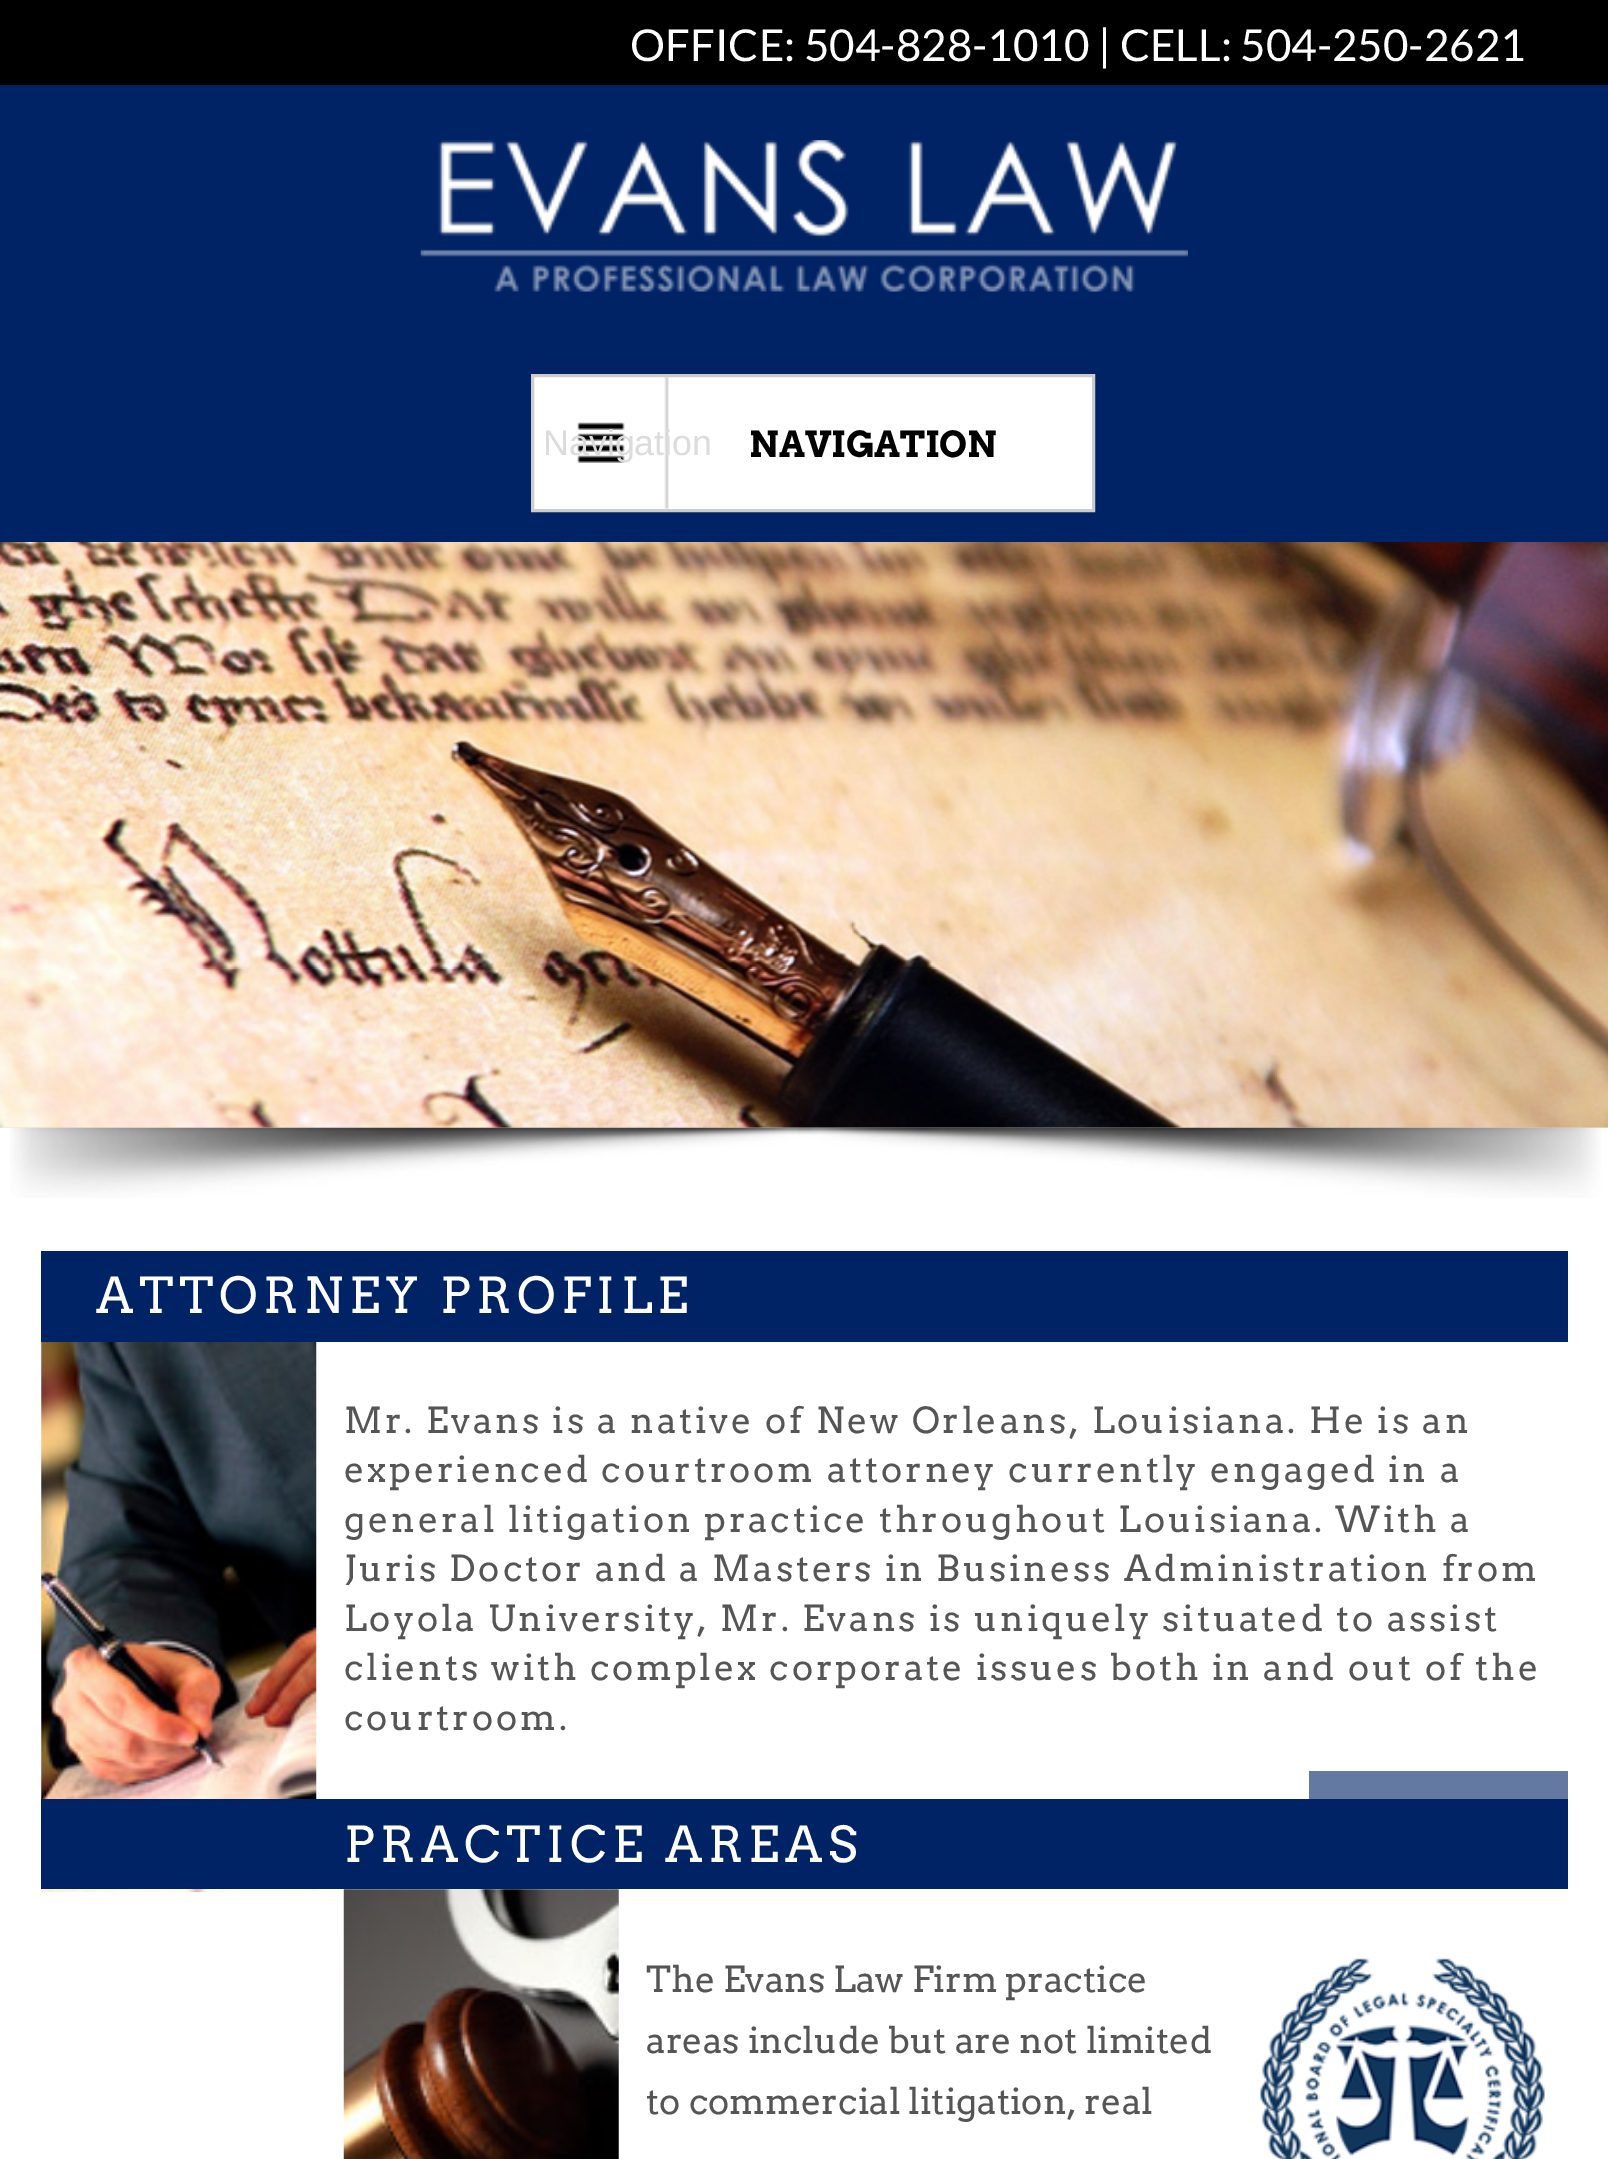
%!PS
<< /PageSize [1608 2159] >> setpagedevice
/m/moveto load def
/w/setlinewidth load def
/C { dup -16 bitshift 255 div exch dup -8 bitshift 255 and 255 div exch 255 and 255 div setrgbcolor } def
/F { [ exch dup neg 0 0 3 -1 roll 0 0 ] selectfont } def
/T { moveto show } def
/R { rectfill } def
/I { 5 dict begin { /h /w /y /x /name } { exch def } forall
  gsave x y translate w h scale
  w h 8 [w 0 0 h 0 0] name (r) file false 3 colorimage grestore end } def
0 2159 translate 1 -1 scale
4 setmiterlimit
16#FFFFFF C
0 0 1608 2159 R
16#000000 C
0 0 1608 85 R
/Lato-Regular 44 F
16#FFFFFF C
(OFFICE: 504-828-1010 | CELL: 504-250-2621) 630 61 T
16#002366 C
0 85 1608 457 R
(1.rgb) 420 140 768 152 I
16#FFFFFF C
534 377 558 132 R
(2.rgb) 577 377 92 132 I
16#CCCCCC C
3 w
532.5 375.5 561 135 rectstroke
/LiberationSans-Regular 35.75 F
16#DCDCDC C
(Navigation) 543 455 T
/Arvo-Bold 35.75 F
16#000000 C
(NAVIGATION) 749 457 T
16#E9E9E9 C
0 1127 1608 1 R
(4.rgb) 10 1127 1591 71 I
(3.rgb) 0 542 1608 586 I
16#002366 C
41 1251 1527 91 R
/Arvo-Regular 49.5 F
16#FFFFFF C
96 1313 m 5.5 0 (ATTORNEY PROFILE) ashow
(5.rgb) 41 1342 276 550 I
/Arvo-Regular 35.75 F
16#555555 C
344 1433 m 2.75 0 (Mr. Evans is a native of New Orleans, Louisiana. He is an) ashow
344 1482 m 2.75 0 (experienced courtroom attorney currently engaged in a) ashow
344 1532 m 2.75 0 (general litigation practice throughout Louisiana. With a) ashow
344 1581 m 2.75 0 (Juris Doctor and a Masters in Business Administration from) ashow
344 1631 m 2.75 0 (Loyola University, Mr. Evans is uniquely situated to assist) ashow
344 1680 m 2.75 0 (clients with complex corporate issues both in and out of the) ashow
344 1730 m 2.75 0 (courtroom.) ashow
16#6479A1 C
1309 1771 259 28 R
16#002366 C
41 1799 1527 90 R
/Arvo-Regular 49.5 F
16#FFFFFF C
344 1862 m 5.5 0 (PRACTICE AREAS) ashow
(6.rgb) 343 1889 276 270 I
/Arvo-Regular 35.75 F
16#555555 C
(The Evans Law Firm practice) 646 1992 T
(7.rgb) 1260 1958 285 201 I
(areas include but are not limited) 646 2053 T
(to commercial litigation, real) 646 2114 T
showpage
